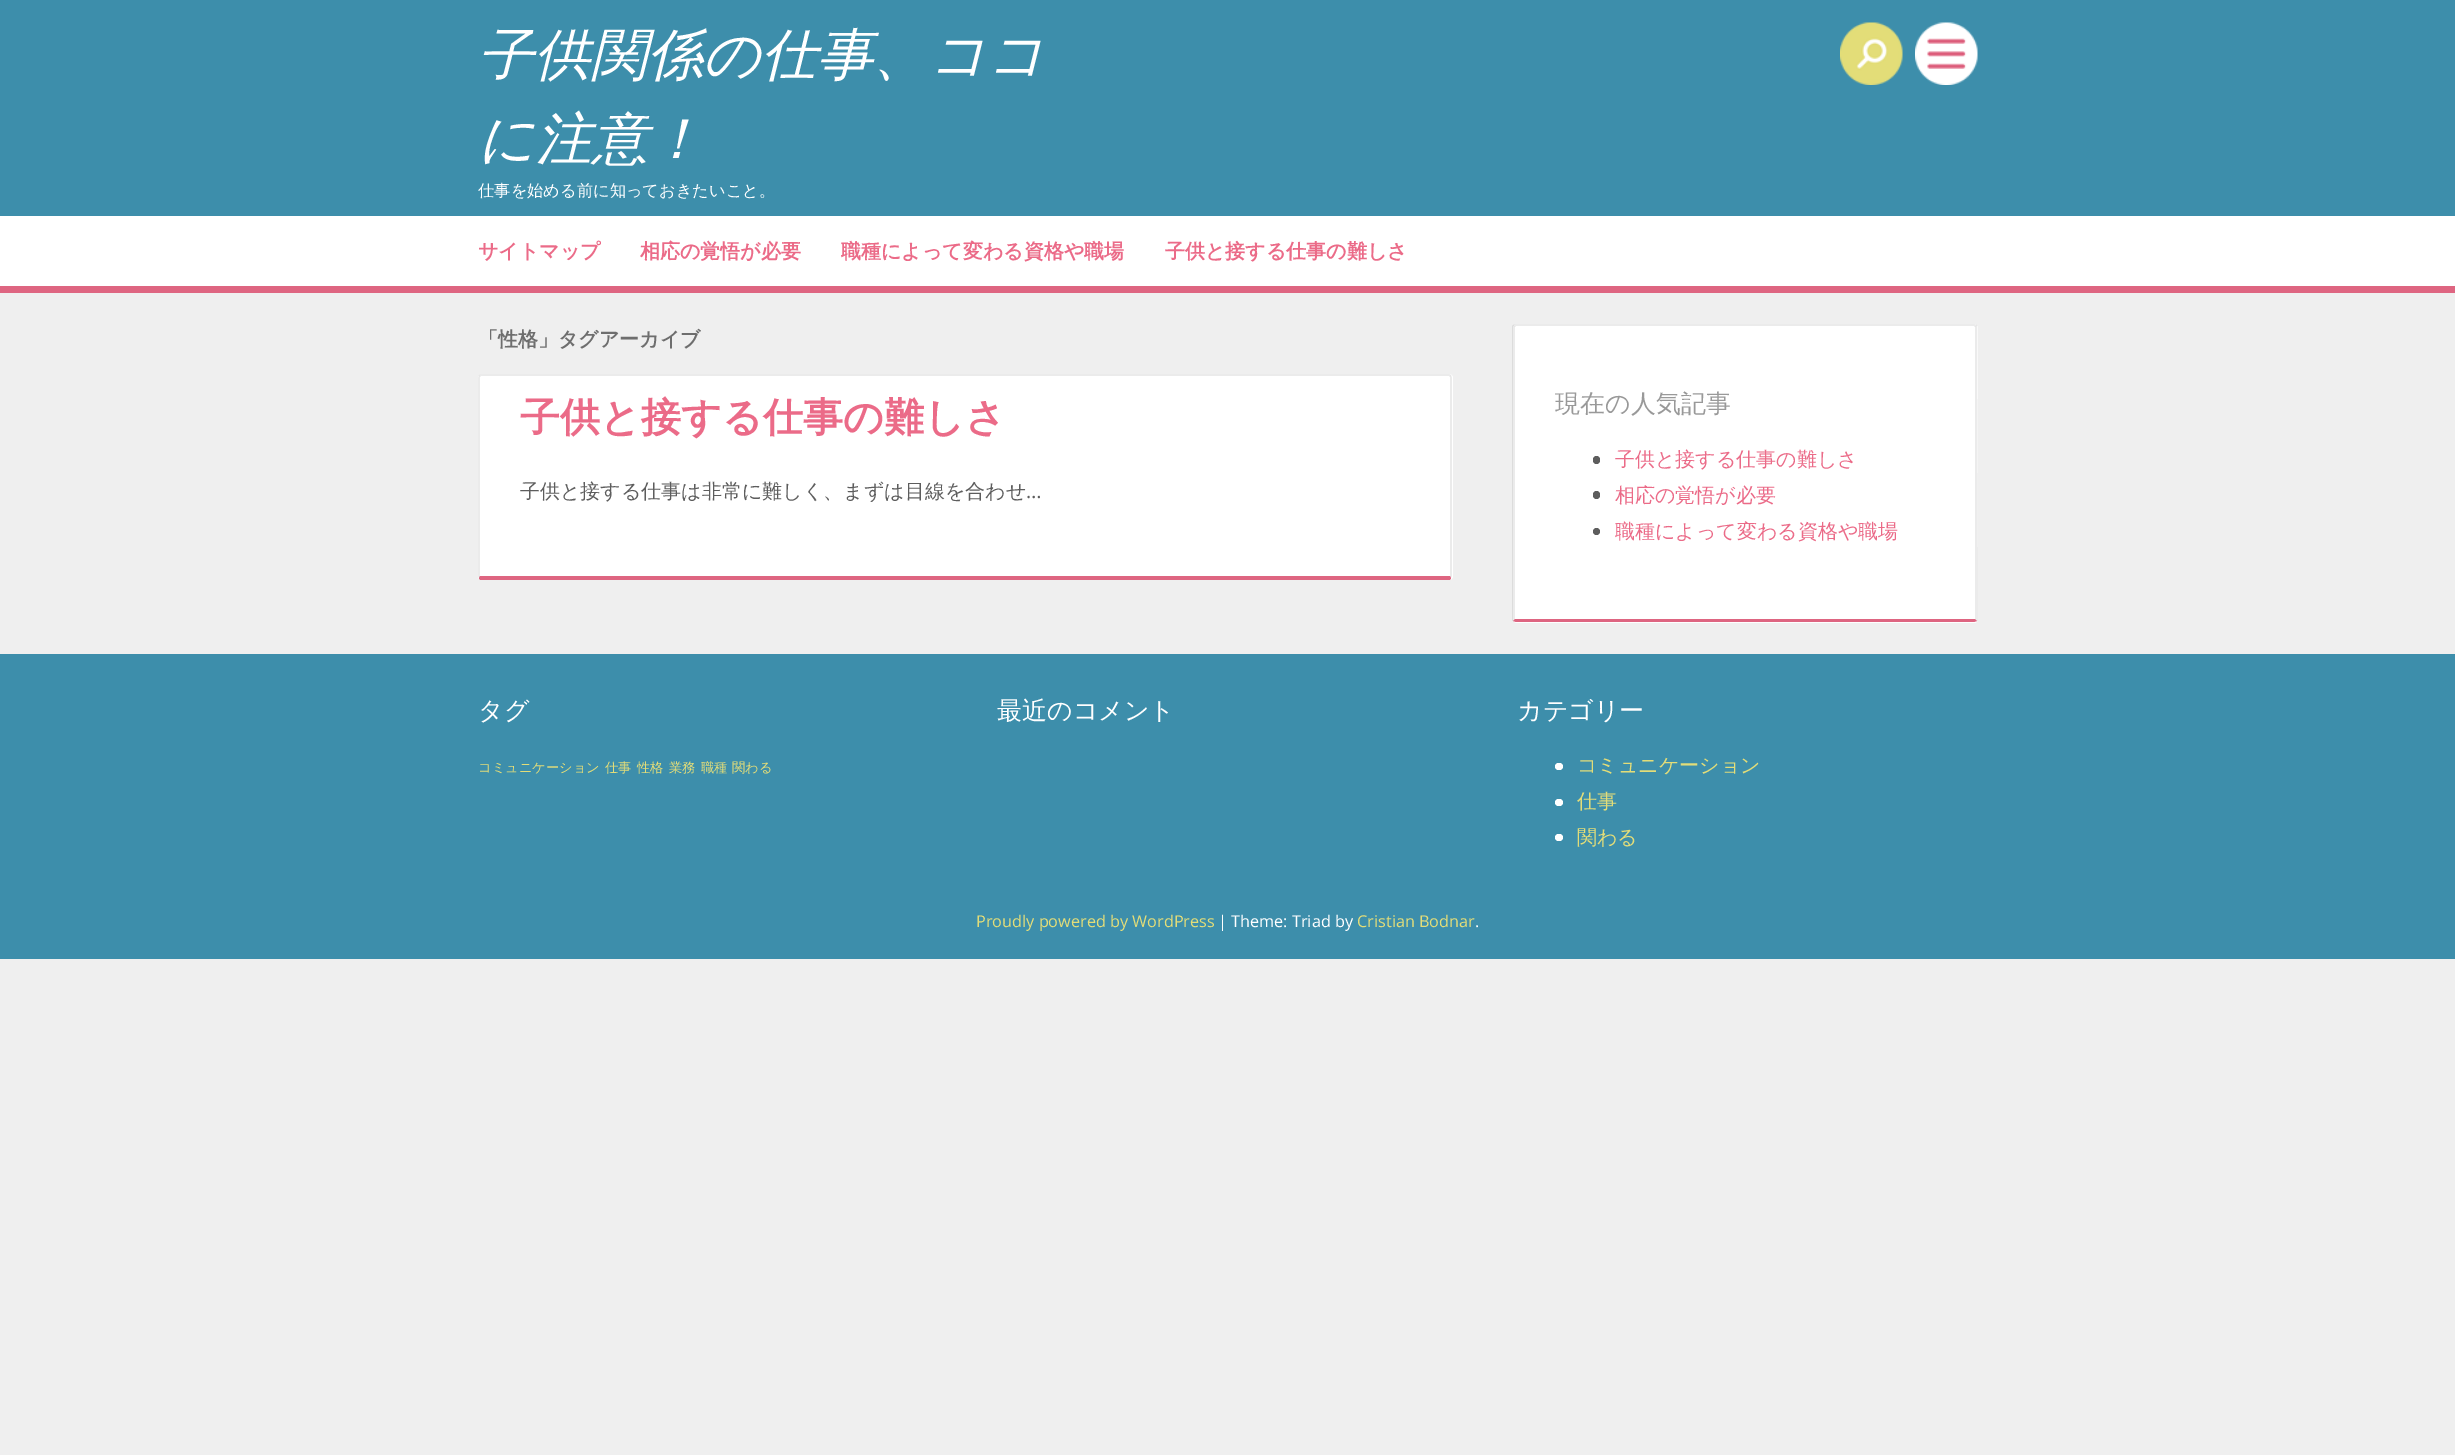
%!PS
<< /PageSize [2455 1455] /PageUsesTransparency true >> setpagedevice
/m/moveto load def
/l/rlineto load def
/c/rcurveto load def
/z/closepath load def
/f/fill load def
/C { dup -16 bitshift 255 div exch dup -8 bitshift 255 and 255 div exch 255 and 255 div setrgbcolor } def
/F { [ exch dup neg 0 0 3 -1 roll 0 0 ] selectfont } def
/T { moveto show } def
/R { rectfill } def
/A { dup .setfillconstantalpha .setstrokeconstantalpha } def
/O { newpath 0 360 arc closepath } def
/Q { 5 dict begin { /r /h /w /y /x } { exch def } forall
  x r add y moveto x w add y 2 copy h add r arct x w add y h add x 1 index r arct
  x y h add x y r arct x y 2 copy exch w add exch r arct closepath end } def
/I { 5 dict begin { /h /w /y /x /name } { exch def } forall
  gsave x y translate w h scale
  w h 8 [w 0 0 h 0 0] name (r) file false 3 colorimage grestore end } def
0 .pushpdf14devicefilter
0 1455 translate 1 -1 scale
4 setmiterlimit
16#EFEFEF C
0 0 2455 1455 R
16#3D8EAB C
0 0 2455 216 R
/WenQuanYiZenHei-MediumItalic 56.25 F
16#FFFFFF C
(子供関係の仕事、ココ) 478 74 T
(に注意！) 478 158 T
/WenQuanYiZenHei-Medium 16.25 F
(仕事を始める前に知っておきたいこと。) 478 196 T
(1.rgb) 1840 22 63 63 I
(2.rgb) 1915 22 63 63 I
0 216 2455 70 R
16#DE6581 C
0 286 2455 7 R
/WenQuanYiZenHei-Bold 20 F
16#EB6B88 C
(サイトマップ) 478 258 T
(相応の覚悟が必要) 640 258 T
(職種によって変わる資格や職場) 841 258 T
(子供と接する仕事の難しさ) 1165 258 T
16#6E6E6E C
(「性格」タグアーカイブ) 478 346 T
16#FFFFFF C
478 374 975 206 4 Q f
0.1 A
16#363636 C
481 374 m -2 1 l 1 2 l 1 -1 l 968 0 l 1 1 l 1 -2 l -2 -1 l z f
1451 578 m 1 -2 l 0 -198 l -1 -3 l -1 2 l 0 1 l 0 198 l z f
1 A
16#DE6581 C
481 580 m 968 0 l 1 0 2 -1 2 -2 c -1 -2 l -970 0 l -1 2 l 0 1 1 2 2 2 c z f
0.1 A
16#363636 C
479 375 m -1 3 l 0 198 l 1 2 l 1 -2 l 0 -198 l 0 -1 l z f
/WenQuanYiZenHei-Bold 40 F
1 A
16#EB6B88 C
(子供と接する仕事の難しさ) 520 431 T
/WenQuanYiZenHei-Medium 20 F
16#5D5D5D C
(子供と接する仕事は非常に難しく、まずは目線を合わせ) 520 498 T
/OpenSans-Regular 20 F
(…) 1026 498 T
16#FFFFFF C
1513 324 465 299 4 Q f
0.1 A
16#363636 C
1516 324 m -3 1 l 2 2 l 1 -1 l 458 0 l 1 1 l 2 -2 l -3 -1 l z f
1977 325 m 1 296 l -1 0 l -2 -2 l 0 -291 l 0 -1 l z f
1 A
16#DE6581 C
1977 621 m -3 1 l -458 0 l -3 -1 l 2 -2 l 460 0 l z f
0.1 A
16#363636 C
1512 326 m 1 -1 l 2 2 l 0 1 l 0 291 l -2 2 l -1 0 l z f
/WenQuanYiZenHei-Medium 25 F
1 A
16#999999 C
(現在の人気記事) 1555 412 T
16#5D5D5D C
1593 456 7 8 3.5 Q f
/WenQuanYiZenHei-Medium 20 F
16#EB6B88 C
(子供と接する仕事の難しさ) 1615 466 T
16#5D5D5D C
1593 491 7 8 3.5 Q f
16#EB6B88 C
(相応の覚悟が必要) 1615 502 T
16#5D5D5D C
1596.5 531.5 3.5 O f
16#EB6B88 C
(職種によって変わる資格や職場) 1615 538 T
16#3D8EAB C
0 654 2455 305 R
/WenQuanYiZenHei-Medium 25 F
16#FFFFFF C
(タグ) 478 719 T
/WenQuanYiZenHei-Medium 13.25 F
16#E3DD78 C
(コミュニケーション) 478 772 T
(仕事) 605 772 T
(性格) 637 772 T
(業務) 669 772 T
(職種) 701 772 T
(関わる) 732 772 T
/WenQuanYiZenHei-Medium 25 F
16#FFFFFF C
(最近のコメント) 997 719 T
(カテゴリー) 1517 719 T
1555 763 8 7 3.5 Q f
/WenQuanYiZenHei-Medium 20 F
16#E3DD78 C
(コミュニケーション) 1577 772 T
16#FFFFFF C
1555 799 8 7 3.5 Q f
16#E3DD78 C
(仕事) 1577 808 T
16#FFFFFF C
1555 834 8 7 3.5 Q f
16#E3DD78 C
(関わる) 1577 844 T
/OpenSans-Regular 16.25 F
(Proudly powered by WordPress) 976 927 T
16#FFFFFF C
(| Theme: Triad by) 1218 927 T
16#E3DD78 C
(Cristian Bodnar) 1357 927 T
16#FFFFFF C
(.) 1475 927 T
.poppdf14devicefilter showpage
